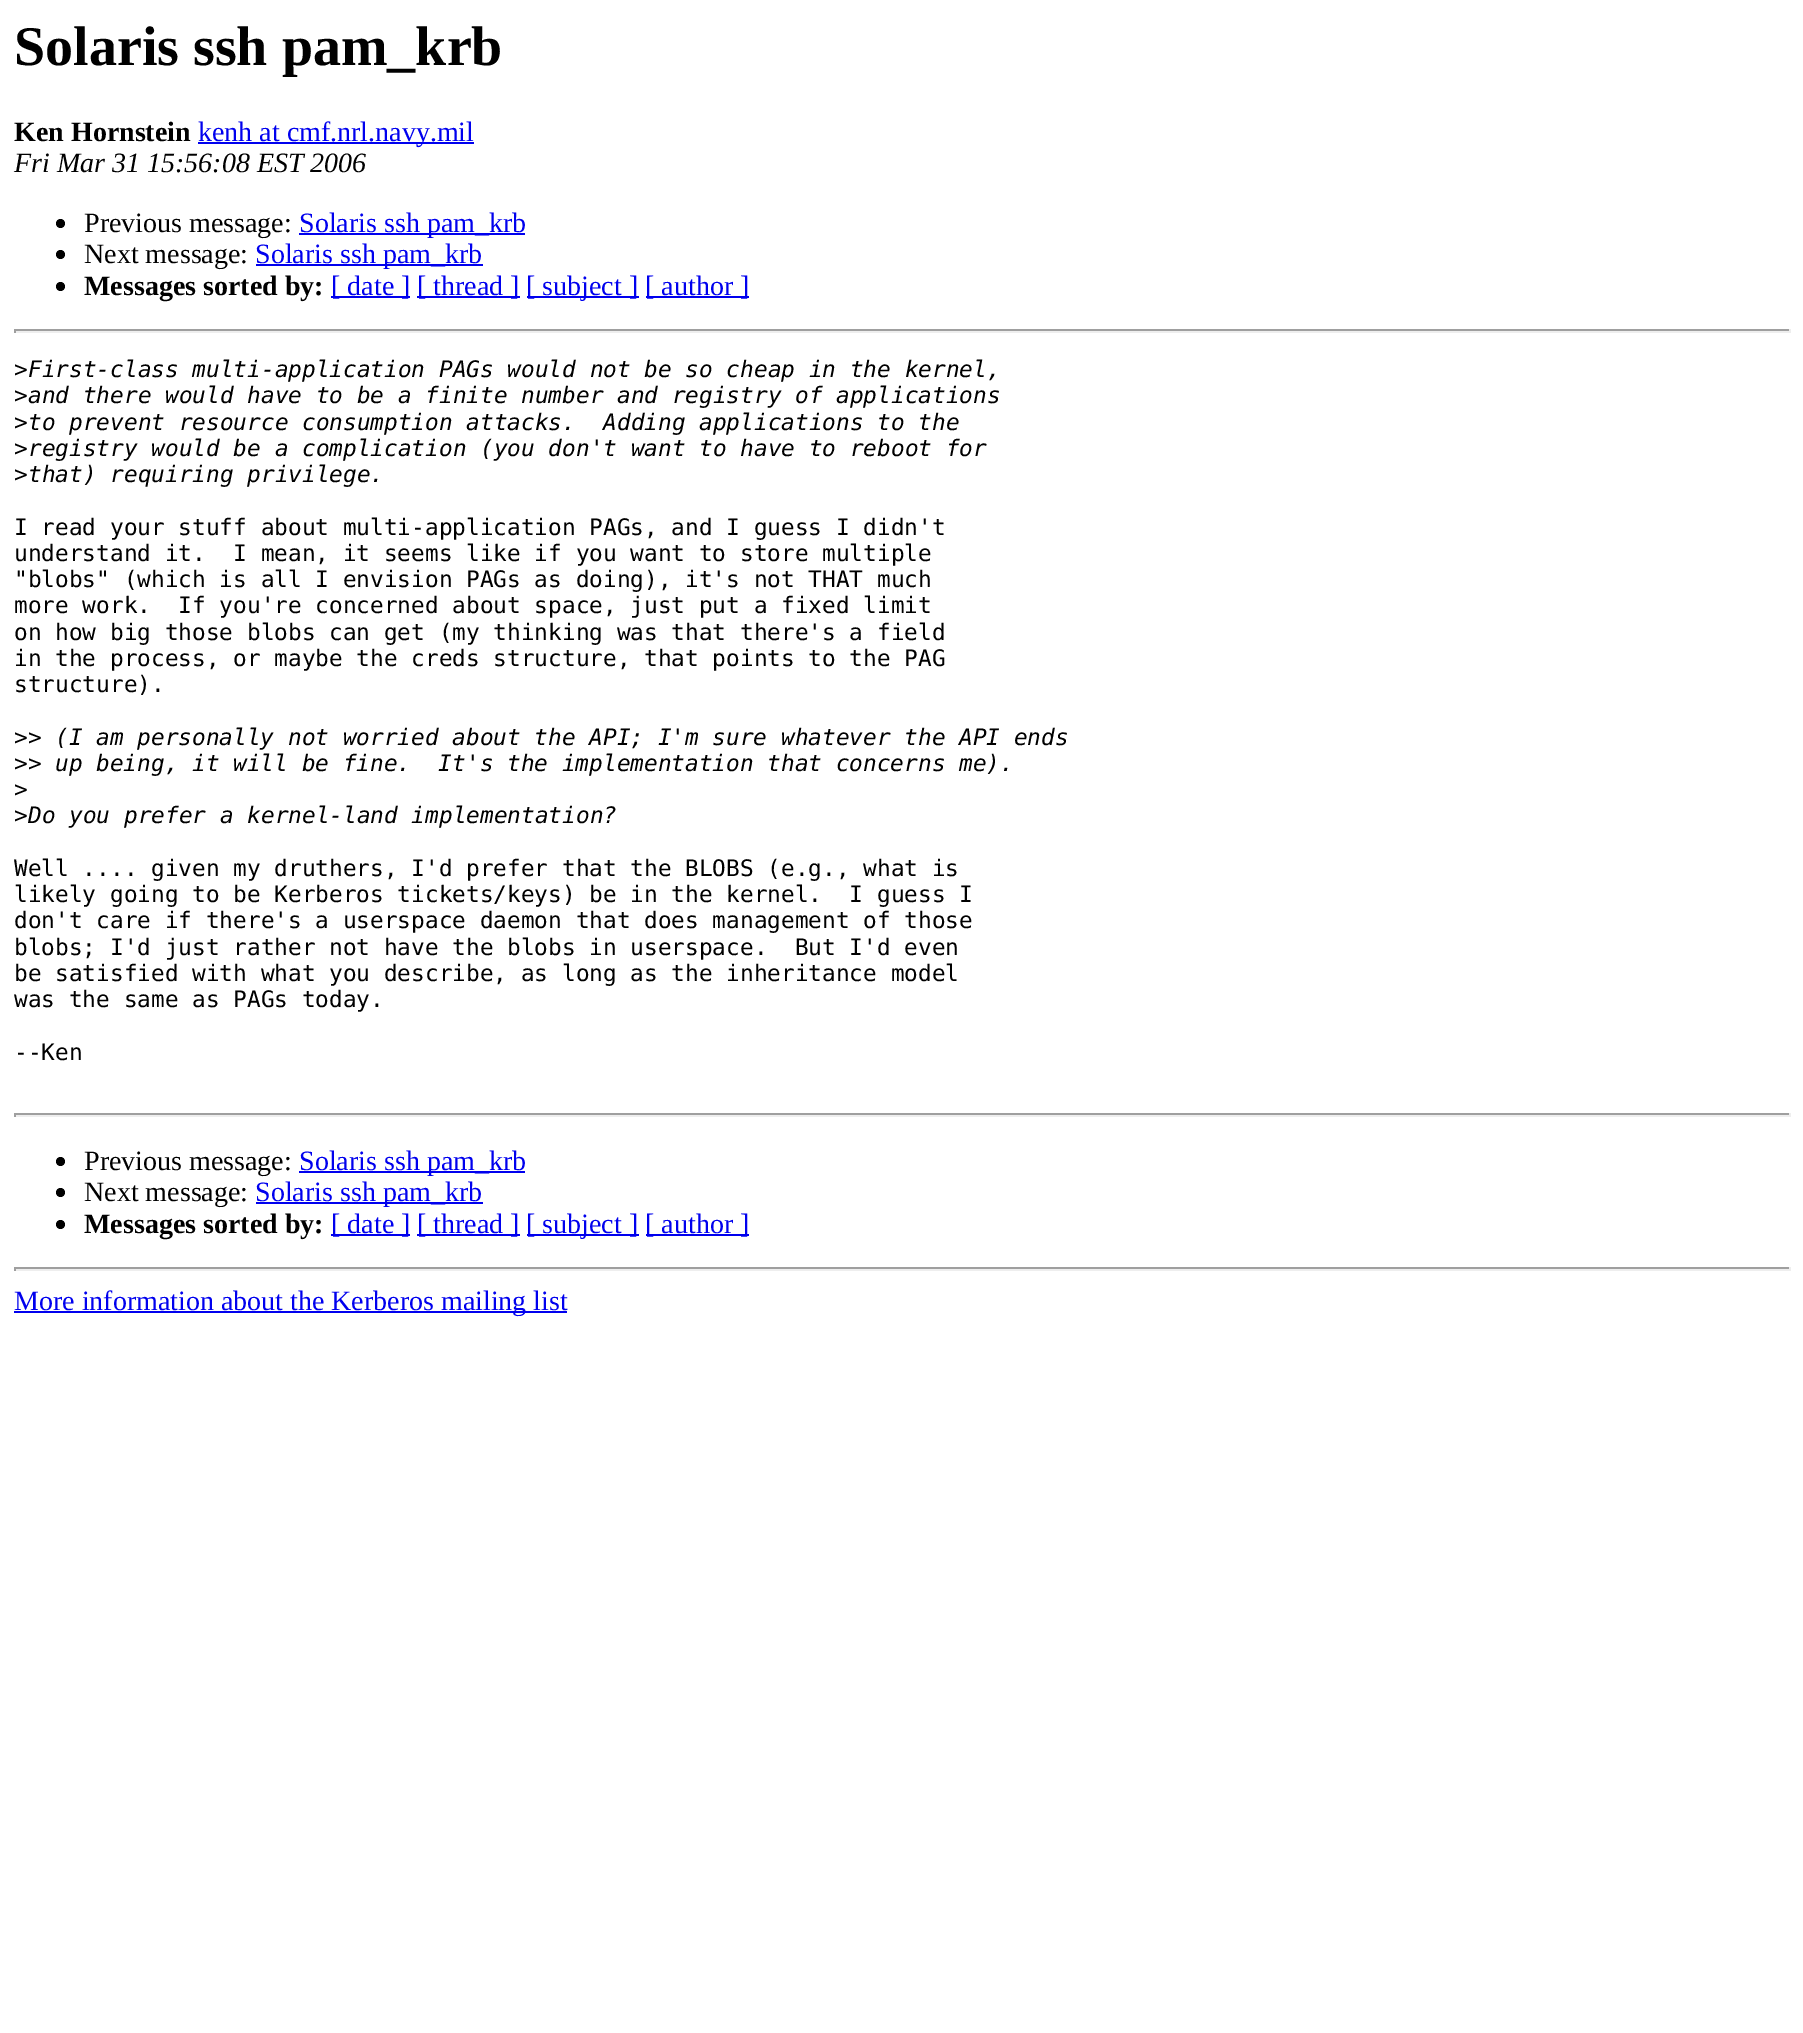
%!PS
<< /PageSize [1803 2033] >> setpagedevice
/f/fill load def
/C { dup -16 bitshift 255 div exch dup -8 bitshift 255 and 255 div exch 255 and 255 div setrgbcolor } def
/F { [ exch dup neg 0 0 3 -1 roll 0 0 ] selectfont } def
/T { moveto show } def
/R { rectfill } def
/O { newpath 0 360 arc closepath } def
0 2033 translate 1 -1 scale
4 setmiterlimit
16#FFFFFF C
0 0 1803 2033 R
/LiberationSerif-Bold 56 F
16#000000 C
(Solaris ssh pam_krb) 14 65 T
/LiberationSerif-Bold 28 F
(Ken Hornstein) 14 141 T
16#0000EE C
198 142 276 2 R
/LiberationSerif-Regular 28 F
(kenh at cmf.nrl.navy.mil) 198 141 T
/LiberationSerif-Italic 28 F
16#000000 C
(Fri Mar 31 15:56:08 EST 2006) 14 172 T
60.5 223.5 4.5 O f
/LiberationSerif-Regular 28 F
(Previous message:) 84 232 T
16#0000EE C
299 233 226 2 R
(Solaris ssh pam_krb) 299 232 T
16#000000 C
60.5 254.5 4.5 O f
(Next message:) 84 263 T
16#0000EE C
256 264 227 2 R
(Solaris ssh pam_krb) 255 263 T
16#000000 C
60.5 286.5 4.5 O f
/LiberationSerif-Bold 28 F
(Messages sorted by:) 84 295 T
16#0000EE C
331 296 79 2 R
/LiberationSerif-Regular 28 F
([ date ]) 331 295 T
417 296 103 2 R
([ thread ]) 417 295 T
527 296 112 2 R
([ subject ]) 526 295 T
646 296 103 2 R
([ author ]) 645 295 T
16#9F9F9F C
14 329 1776 2 R
16#EEEEEE C
1789 329 2 4 R
14 331 1776 2 R
16#9F9F9F C
14 329 2 4 R
/DejaVuSansMono-Regular 22.75 F
16#000000 C
(>) 14 377 T
/DejaVuSansMono-Italic 22.75 F
(First-class multi-application PAGs would not be so cheap in the kernel,) 28 377 T
/DejaVuSansMono-Regular 22.75 F
(>) 14 403 T
/DejaVuSansMono-Italic 22.75 F
(and there would have to be a finite number and registry of applications) 28 403 T
/DejaVuSansMono-Regular 22.75 F
(>) 14 430 T
/DejaVuSansMono-Italic 22.75 F
(to prevent resource consumption attacks.  Adding applications to the) 28 430 T
/DejaVuSansMono-Regular 22.75 F
(>) 14 456 T
/DejaVuSansMono-Italic 22.75 F
(registry would be a complication \(you don't want to have to reboot for) 28 456 T
/DejaVuSansMono-Regular 22.75 F
(>) 14 482 T
/DejaVuSansMono-Italic 22.75 F
(that\) requiring privilege.) 28 482 T
/DejaVuSansMono-Regular 22.75 F
(I read your stuff about multi-application PAGs, and I guess I didn't) 14 535 T
(understand it.  I mean, it seems like if you want to store multiple) 14 561 T
("blobs" \(which is all I envision PAGs as doing\), it's not THAT much) 14 587 T
(more work.  If you're concerned about space, just put a fixed limit) 14 613 T
(on how big those blobs can get \(my thinking was that there's a field) 14 640 T
(in the process, or maybe the creds structure, that points to the PAG) 14 666 T
(structure\).) 14 692 T
(>>) 14 745 T
/DejaVuSansMono-Italic 22.75 F
(\(I am personally not worried about the API; I'm sure whatever the API ends) 55 745 T
/DejaVuSansMono-Regular 22.75 F
(>>) 14 771 T
/DejaVuSansMono-Italic 22.75 F
(up being, it will be fine.  It's the implementation that concerns me\).) 55 771 T
/DejaVuSansMono-Regular 22.75 F
(>) 14 797 T
(>) 14 823 T
/DejaVuSansMono-Italic 22.75 F
(Do you prefer a kernel-land implementation?) 28 823 T
/DejaVuSansMono-Regular 22.75 F
(Well .... given my druthers, I'd prefer that the BLOBS \(e.g., what is) 14 876 T
(likely going to be Kerberos tickets/keys\) be in the kernel.  I guess I) 14 902 T
(don't care if there's a userspace daemon that does management of those) 14 928 T
(blobs; I'd just rather not have the blobs in userspace.  But I'd even) 14 955 T
(be satisfied with what you describe, as long as the inheritance model) 14 981 T
(was the same as PAGs today.) 14 1007 T
(--Ken) 14 1060 T
16#9F9F9F C
14 1113 1776 2 R
16#EEEEEE C
1789 1113 2 4 R
14 1115 1776 2 R
16#9F9F9F C
14 1113 2 4 R
16#000000 C
60.5 1161.5 4.5 O f
/LiberationSerif-Regular 28 F
(Previous message:) 84 1170 T
16#0000EE C
299 1171 226 2 R
(Solaris ssh pam_krb) 299 1170 T
16#000000 C
60.5 1192.5 4.5 O f
(Next message:) 84 1201 T
16#0000EE C
256 1202 227 2 R
(Solaris ssh pam_krb) 255 1201 T
16#000000 C
60.5 1224.5 4.5 O f
/LiberationSerif-Bold 28 F
(Messages sorted by:) 84 1233 T
16#0000EE C
331 1234 79 2 R
/LiberationSerif-Regular 28 F
([ date ]) 331 1233 T
417 1234 103 2 R
([ thread ]) 417 1233 T
527 1234 112 2 R
([ subject ]) 526 1233 T
646 1234 103 2 R
([ author ]) 645 1233 T
16#9F9F9F C
14 1267 1776 2 R
16#EEEEEE C
1789 1267 2 4 R
14 1269 1776 2 R
16#9F9F9F C
14 1267 2 4 R
16#0000EE C
14 1311 553 2 R
(More information about the Kerberos mailing list) 14 1310 T
showpage
